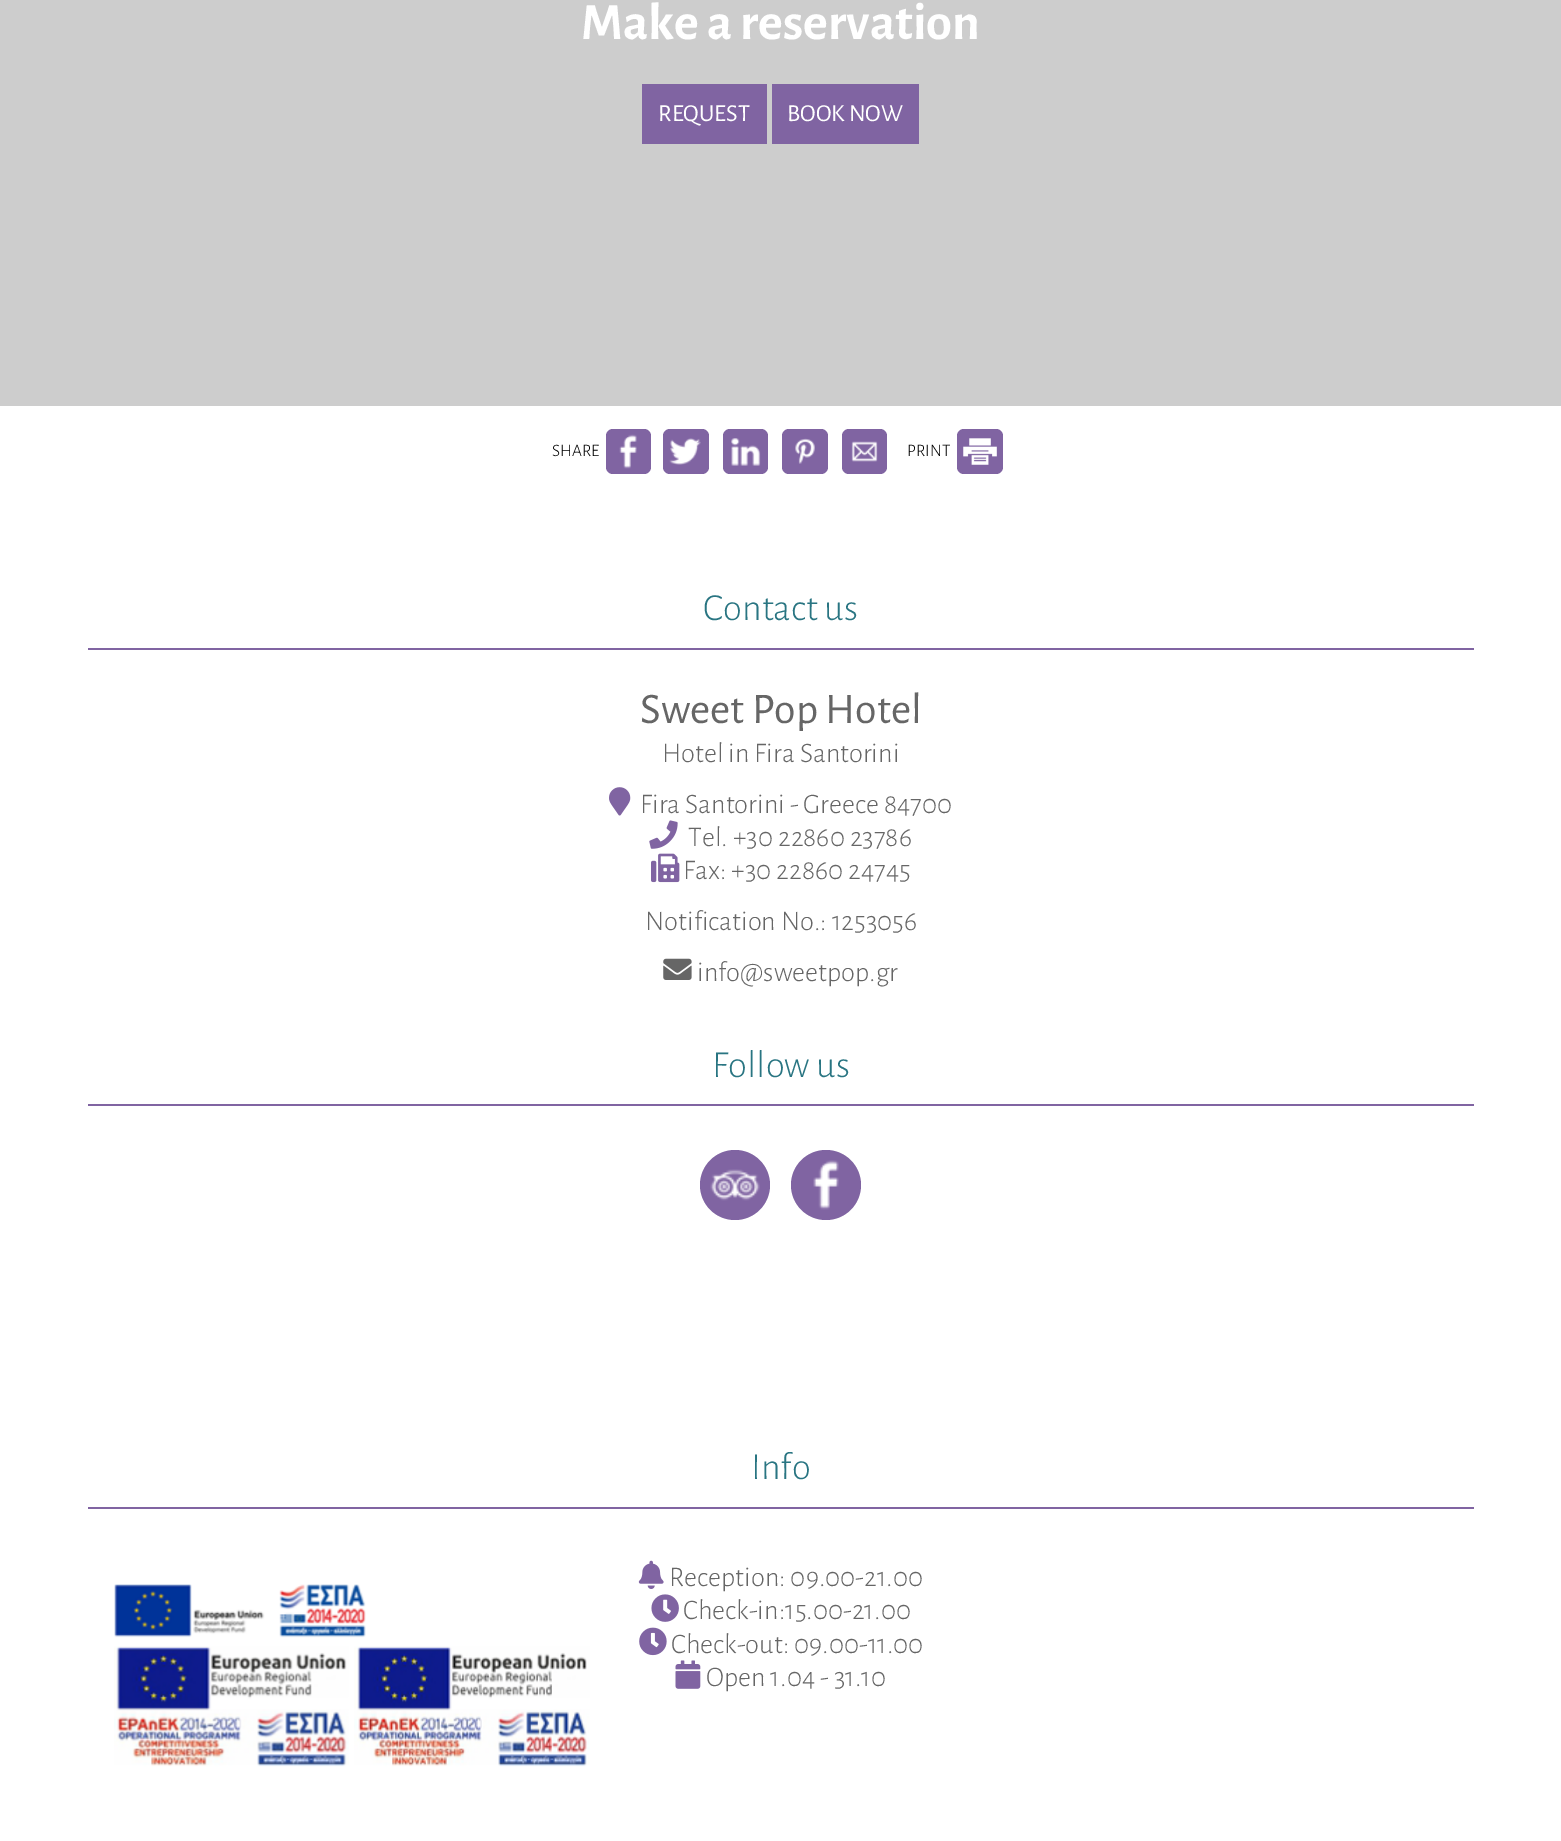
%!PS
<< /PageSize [1561 1841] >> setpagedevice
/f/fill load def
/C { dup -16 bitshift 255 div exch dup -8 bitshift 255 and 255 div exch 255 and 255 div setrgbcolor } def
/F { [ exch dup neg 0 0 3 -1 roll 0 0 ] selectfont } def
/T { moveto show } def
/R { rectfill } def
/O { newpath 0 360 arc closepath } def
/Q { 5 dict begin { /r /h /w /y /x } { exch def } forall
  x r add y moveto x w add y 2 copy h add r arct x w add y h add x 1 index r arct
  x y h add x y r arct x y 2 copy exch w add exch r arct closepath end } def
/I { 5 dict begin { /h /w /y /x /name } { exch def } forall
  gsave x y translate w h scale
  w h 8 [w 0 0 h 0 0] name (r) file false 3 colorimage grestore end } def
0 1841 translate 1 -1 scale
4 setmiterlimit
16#FFFFFF C
0 0 1561 1841 R
16#CDCDCD C
0 0 1561 406 R
/AlegreyaSans-Bold 52.5 F
16#FFFFFF C
(Make a reservation) 581 39 T
16#8064A2 C
642 84 125 60 R
/AlegreyaSans-Regular 24.5 F
16#FFFFFF C
(REQUEST) 658 121 T
16#8064A2 C
772 84 147 60 R
16#FFFFFF C
(BOOK NOW) 787 121 T
/AlegreyaSans-Light 17.5 F
16#000000 C
(SHARE) 552 456 T
16#8064A2 C
606 429 45 45 7 Q f
(1.rgb) 619 434 18 35 I
663 429 46 45 7 Q f
(2.rgb) 669 438 32 27 I
723 429 45 45 7 Q f
(3.rgb) 731 438 30 28 I
782 429 46 45 7 Q f
(4.rgb) 795 438 20 26 I
842 429 45 45 7 Q f
(5.rgb) 851 441 27 21 I
16#000000 C
(PRINT) 907 456 T
16#8064A2 C
957 429 46 45 7 Q f
(6.rgb) 963 438 34 27 I
(7.rgb) 114 1584 252 54 I
(8.rgb) 114 1646 235 121 I
(9.rgb) 354 1646 236 121 I
88 648 1386 2 R
/AlegreyaSans-Light 38.5 F
16#297582 C
(Contact us) 703 620 T
/AlegreyaSans-Regular 43.75 F
16#666666 C
(Sweet Pop Hotel) 640 723 T
/AlegreyaSans-Light 28.4 F
(Hotel in Fira Santorini) 662 762 T
(10.rgb) 609 787 22 29 I
(Fira Santorini - Greece 84700) 640 813 T
(11.rgb) 649 820 29 29 I
(Tel. +30 22860 23786) 688 846 T
(12.rgb) 651 853 29 30 I
(Fax: +30 22860 24745) 683 879 T
(Notification No.: 1253056) 645 930 T
(13.rgb) 663 958 29 22 I
(info@sweetpop.gr) 697 981 T
16#8064A2 C
88 1104 1386 2 R
/AlegreyaSans-Light 38.5 F
16#297582 C
(Follow us) 712 1077 T
16#8064A2 C
735 1185 35 O f
(14.rgb) 710 1169 50 32 I
826 1185 35 O f
(15.rgb) 813 1160 26 50 I
88 1507 1386 2 R
16#297582 C
(Info) 751 1479 T
(16.rgb) 638 1560 26 29 I
/AlegreyaSans-Light 28.4 F
16#666666 C
(Reception: 09.00-21.00) 669 1586 T
(17.rgb) 651 1594 28 28 I
(Check-in:15.00-21.00) 683 1619 T
(18.rgb) 639 1627 28 29 I
(Check-out: 09.00-11.00) 671 1653 T
(19.rgb) 675 1660 26 29 I
(Open 1.04 - 31.10) 706 1686 T
showpage
